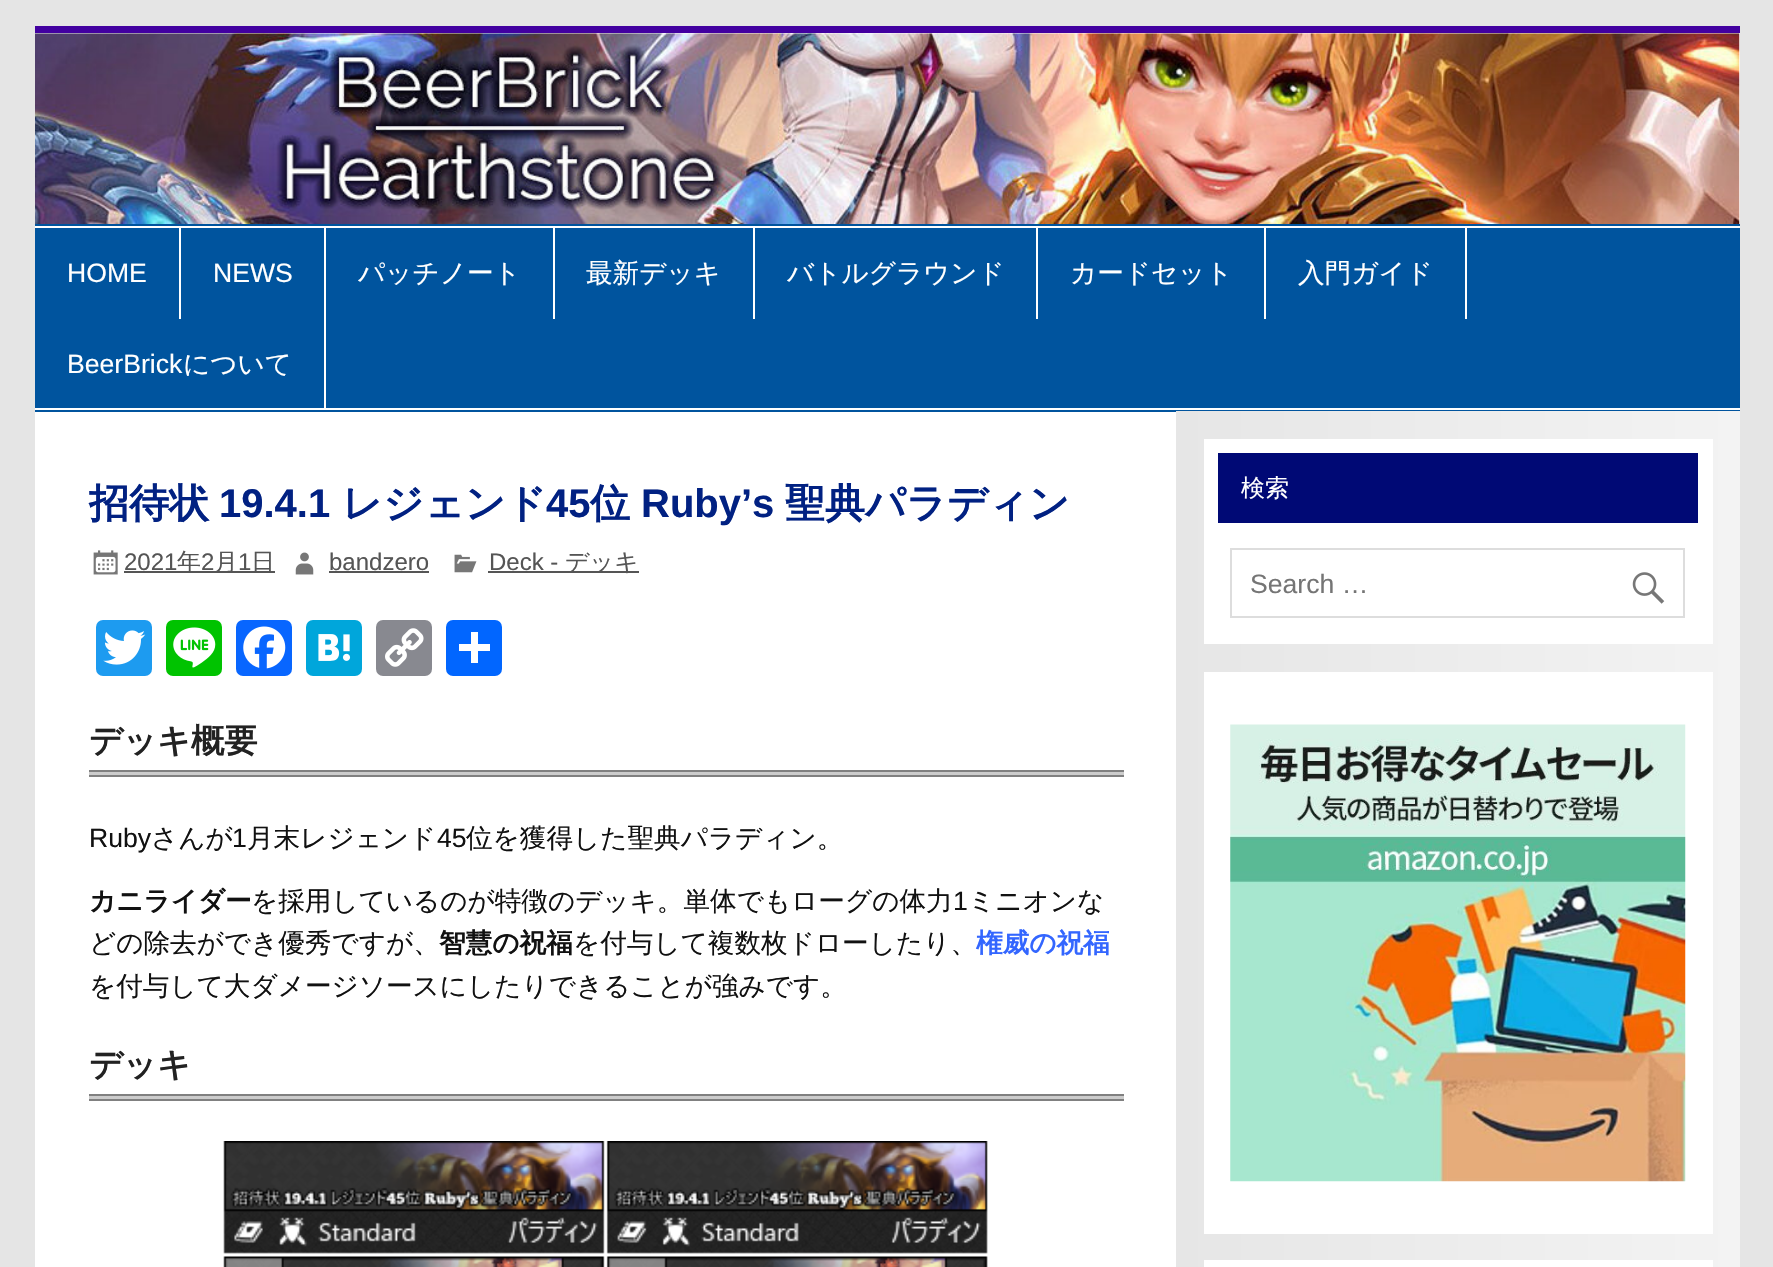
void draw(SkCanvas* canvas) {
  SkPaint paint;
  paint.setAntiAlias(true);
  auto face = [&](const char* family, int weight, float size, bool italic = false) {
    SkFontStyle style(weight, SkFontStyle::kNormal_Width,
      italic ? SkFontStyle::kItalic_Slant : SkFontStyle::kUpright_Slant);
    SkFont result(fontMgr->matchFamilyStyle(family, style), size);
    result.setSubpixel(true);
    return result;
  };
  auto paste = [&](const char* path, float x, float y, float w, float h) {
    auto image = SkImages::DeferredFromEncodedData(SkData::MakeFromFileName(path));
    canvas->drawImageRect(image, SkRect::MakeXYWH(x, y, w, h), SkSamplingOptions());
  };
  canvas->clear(0xffe5e5e5);
  paint.setColor(0xffffffff);
  canvas->drawRect(SkRect::MakeXYWH(35, 33, 1705, 1234), paint);
  paint.setColor(0xff4200a0);
  canvas->drawRect(SkRect::MakeXYWH(35, 26, 1705, 7), paint);
  paste("img/1.png", 35, 33, 1705, 191);
  {
    const struct { float x, y, w, h; SkColor color; } items[] = {
      {35, 224, 1705, 2, 0xff00549e},
      {35, 410, 1705, 2, 0xff00549e},
      {35, 228, 1705, 180, 0xff00549e},
      {179, 228, 2, 91, 0xffffffff},
      {324, 228, 2, 180, 0xffffffff},
      {553, 228, 2, 91, 0xffffffff},
      {753, 228, 2, 91, 0xffffffff},
      {1036, 228, 2, 91, 0xffffffff},
      {1264, 228, 2, 91, 0xffffffff},
      {1465, 228, 2, 91, 0xffffffff},
    };
    for (auto [x, y, w, h, color] : items) {
      paint.setColor(color);
      canvas->drawRect(SkRect::MakeXYWH(x, y, w, h), paint);
    }
  }
  paste("img/2.png", 93, 550, 25, 25);
  paint.setColor(0xff555555);
  canvas->drawRect(SkRect::MakeXYWH(124, 571, 151, 2), paint);
  paste("img/3.png", 295, 552, 19, 23);
  canvas->drawRect(SkRect::MakeXYWH(329, 571, 100, 2), paint);
  paste("img/4.png", 454, 554, 23, 19);
  canvas->drawRect(SkRect::MakeXYWH(488, 571, 151, 2), paint);
  paint.setColor(0xff1d9bf0);
  canvas->drawRoundRect(SkRect::MakeXYWH(96, 620, 56, 56), 7, 7, paint);
  paste("img/5.png", 103, 630, 43, 35);
  paint.setColor(0xff00c300);
  canvas->drawRoundRect(SkRect::MakeXYWH(166, 620, 56, 56), 7, 7, paint);
  paste("img/6.png", 173, 627, 43, 41);
  paint.setColor(0xff0866ff);
  canvas->drawRoundRect(SkRect::MakeXYWH(236, 620, 56, 56), 7, 7, paint);
  paste("img/7.png", 243, 626, 43, 43);
  paint.setColor(0xff00a6db);
  canvas->drawRoundRect(SkRect::MakeXYWH(306, 620, 56, 56), 7, 7, paint);
  paste("img/8.png", 318, 634, 33, 27);
  paint.setColor(0xff888990);
  canvas->drawRoundRect(SkRect::MakeXYWH(376, 620, 56, 56), 7, 7, paint);
  paste("img/9.png", 385, 628, 39, 39);
  paint.setColor(0xff0166ff);
  canvas->drawRoundRect(SkRect::MakeXYWH(446, 620, 56, 56), 7, 7, paint);
  {
    const struct { float x, y, w, h; SkColor color; } items[] = {
      {471, 632, 7, 31, 0xffffffff},
      {459, 644, 31, 7, 0xffffffff},
      {89, 772, 1035, 3, 0xffcccccc},
      {89, 770, 1035, 2, 0xff808080},
      {89, 775, 1035, 2, 0xff808080},
      {89, 1096, 1035, 3, 0xffcccccc},
      {89, 1094, 1035, 2, 0xff808080},
      {89, 1099, 1035, 2, 0xff808080},
    };
    for (auto [x, y, w, h, color] : items) {
      paint.setColor(color);
      canvas->drawRect(SkRect::MakeXYWH(x, y, w, h), paint);
    }
  }
  paste("img/10.png", 223, 1141, 765, 126);
  {
    const SkColor colors[] = {0xffe6e6e6, 0xfff3f3f3};
    const float stops[] = {0, 1};
    const SkPoint ends[] = {{1176, 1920}, {1740, 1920}};
    paint.setShader(SkGradientShader::MakeLinear(ends, colors, stops, 2, SkTileMode::kClamp));
    paint.setAlpha(255);
  }
  canvas->drawRect(SkRect::MakeXYWH(1176, 411, 564, 856), paint);
  paint.setShader(nullptr);
  paint.setColor(0xffffffff);
  canvas->drawRect(SkRect::MakeXYWH(1204, 439, 509, 205), paint);
  paint.setColor(0xff000975);
  canvas->drawRect(SkRect::MakeXYWH(1218, 453, 480, 70), paint);
  paint.setStroke(true);
  paint.setStrokeWidth(2);
  paint.setColor(0xffdddddd);
  canvas->drawRect(SkRect::MakeXYWH(1231, 549, 453, 68), paint);
  paste("img/11.png", 1632, 572, 33, 32);
  paint.setStroke(false);
  paint.setColor(0xffffffff);
  canvas->drawRect(SkRect::MakeXYWH(1204, 672, 509, 562), paint);
  paste("img/12.png", 1230, 724, 456, 458);
  canvas->drawRect(SkRect::MakeXYWH(1204, 1260, 509, 7), paint);
  auto f0 = face("Liberation Sans", 400, 26.6f);
  canvas->drawString("HOME", 67, 282, f0, paint);
  canvas->drawString("NEWS", 213, 282, f0, paint);
  auto f1 = face("WenQuanYi Zen Hei", 500, 26.6f);
  {
    const struct { const char* s; float x, y; } items[] = {
      {"パッチノート", 358, 282},
      {"最新デッキ", 586, 282},
      {"バトルグラウンド", 787, 282},
      {"カードセット", 1070, 282},
      {"入門ガイド", 1298, 282},
    };
    for (auto [s, x, y] : items) {
      canvas->drawString(s, x, y, f1, paint);
    }
  }
  canvas->drawString("BeerBrick", 67, 373, f0, paint);
  canvas->drawString("について", 183, 373, f1, paint);
  auto f2 = face("WenQuanYi Zen Hei", 700, 40);
  paint.setColor(0xff012182);
  canvas->drawString("招待状", 89, 517, f2, paint);
  auto f3 = face("Liberation Sans", 700, 40);
  canvas->drawString("19.4.1", 219, 517, f3, paint);
  canvas->drawString("レジェンド", 342, 517, f2, paint);
  canvas->drawString("45", 546, 517, f3, paint);
  canvas->drawString("位", 590, 517, f2, paint);
  canvas->drawString("Ruby’s", 641, 517, f3, paint);
  canvas->drawString("聖典パラディン", 785, 517, f2, paint);
  auto f4 = face("Liberation Sans", 400, 24);
  paint.setColor(0xff555555);
  canvas->drawString("2021", 124, 570, f4, paint);
  auto f5 = face("WenQuanYi Zen Hei", 500, 24);
  canvas->drawString("年", 177, 570, f5, paint);
  canvas->drawString("2", 201, 570, f4, paint);
  canvas->drawString("月", 214, 570, f5, paint);
  canvas->drawString("1", 238, 570, f4, paint);
  canvas->drawString("日", 251, 570, f5, paint);
  canvas->drawString("bandzero", 329, 570, f4, paint);
  canvas->drawString("Deck -", 489, 570, f4, paint);
  canvas->drawString("デッキ", 565, 570, f5, paint);
  auto f6 = face("WenQuanYi Zen Hei", 700, 33.25f);
  paint.setColor(0xff222222);
  canvas->drawString("デッキ概要", 89, 752, f6, paint);
  paint.setColor(0xff111111);
  canvas->drawString("Ruby", 89, 847, f0, paint);
  canvas->drawString("さんが", 151, 847, f1, paint);
  canvas->drawString("1", 232, 847, f0, paint);
  canvas->drawString("月末レジェンド", 247, 847, f1, paint);
  canvas->drawString("45", 437, 847, f0, paint);
  canvas->drawString("位を獲得した聖典パラディン。", 466, 847, f1, paint);
  auto f7 = face("WenQuanYi Zen Hei", 700, 26.6f);
  canvas->drawString("カニライダー", 89, 910, f7, paint);
  canvas->drawString("を採用しているのが特徴のデッキ。単体でもローグの体力", 251, 910, f1, paint);
  canvas->drawString("1", 953, 910, f0, paint);
  canvas->drawString("ミニオンな", 968, 910, f1, paint);
  canvas->drawString("どの除去ができ優秀ですが、", 89, 952, f1, paint);
  canvas->drawString("智慧の祝福", 439, 952, f7, paint);
  canvas->drawString("を付与して複数枚ドローしたり、", 573, 952, f1, paint);
  paint.setColor(0xff3366ff);
  canvas->drawString("権威の祝福", 976, 952, f7, paint);
  paint.setColor(0xff111111);
  canvas->drawString("を付与して大ダメージソースにしたりできることが強みです。", 89, 995, f1, paint);
  paint.setColor(0xff222222);
  canvas->drawString("デッキ", 89, 1076, f6, paint);
  paint.setColor(0xffffffff);
  canvas->drawString("検索", 1241, 496, f5, paint);
  paint.setColor(0xff757575);
  canvas->drawString("Search …", 1250, 593, f0, paint);
}
